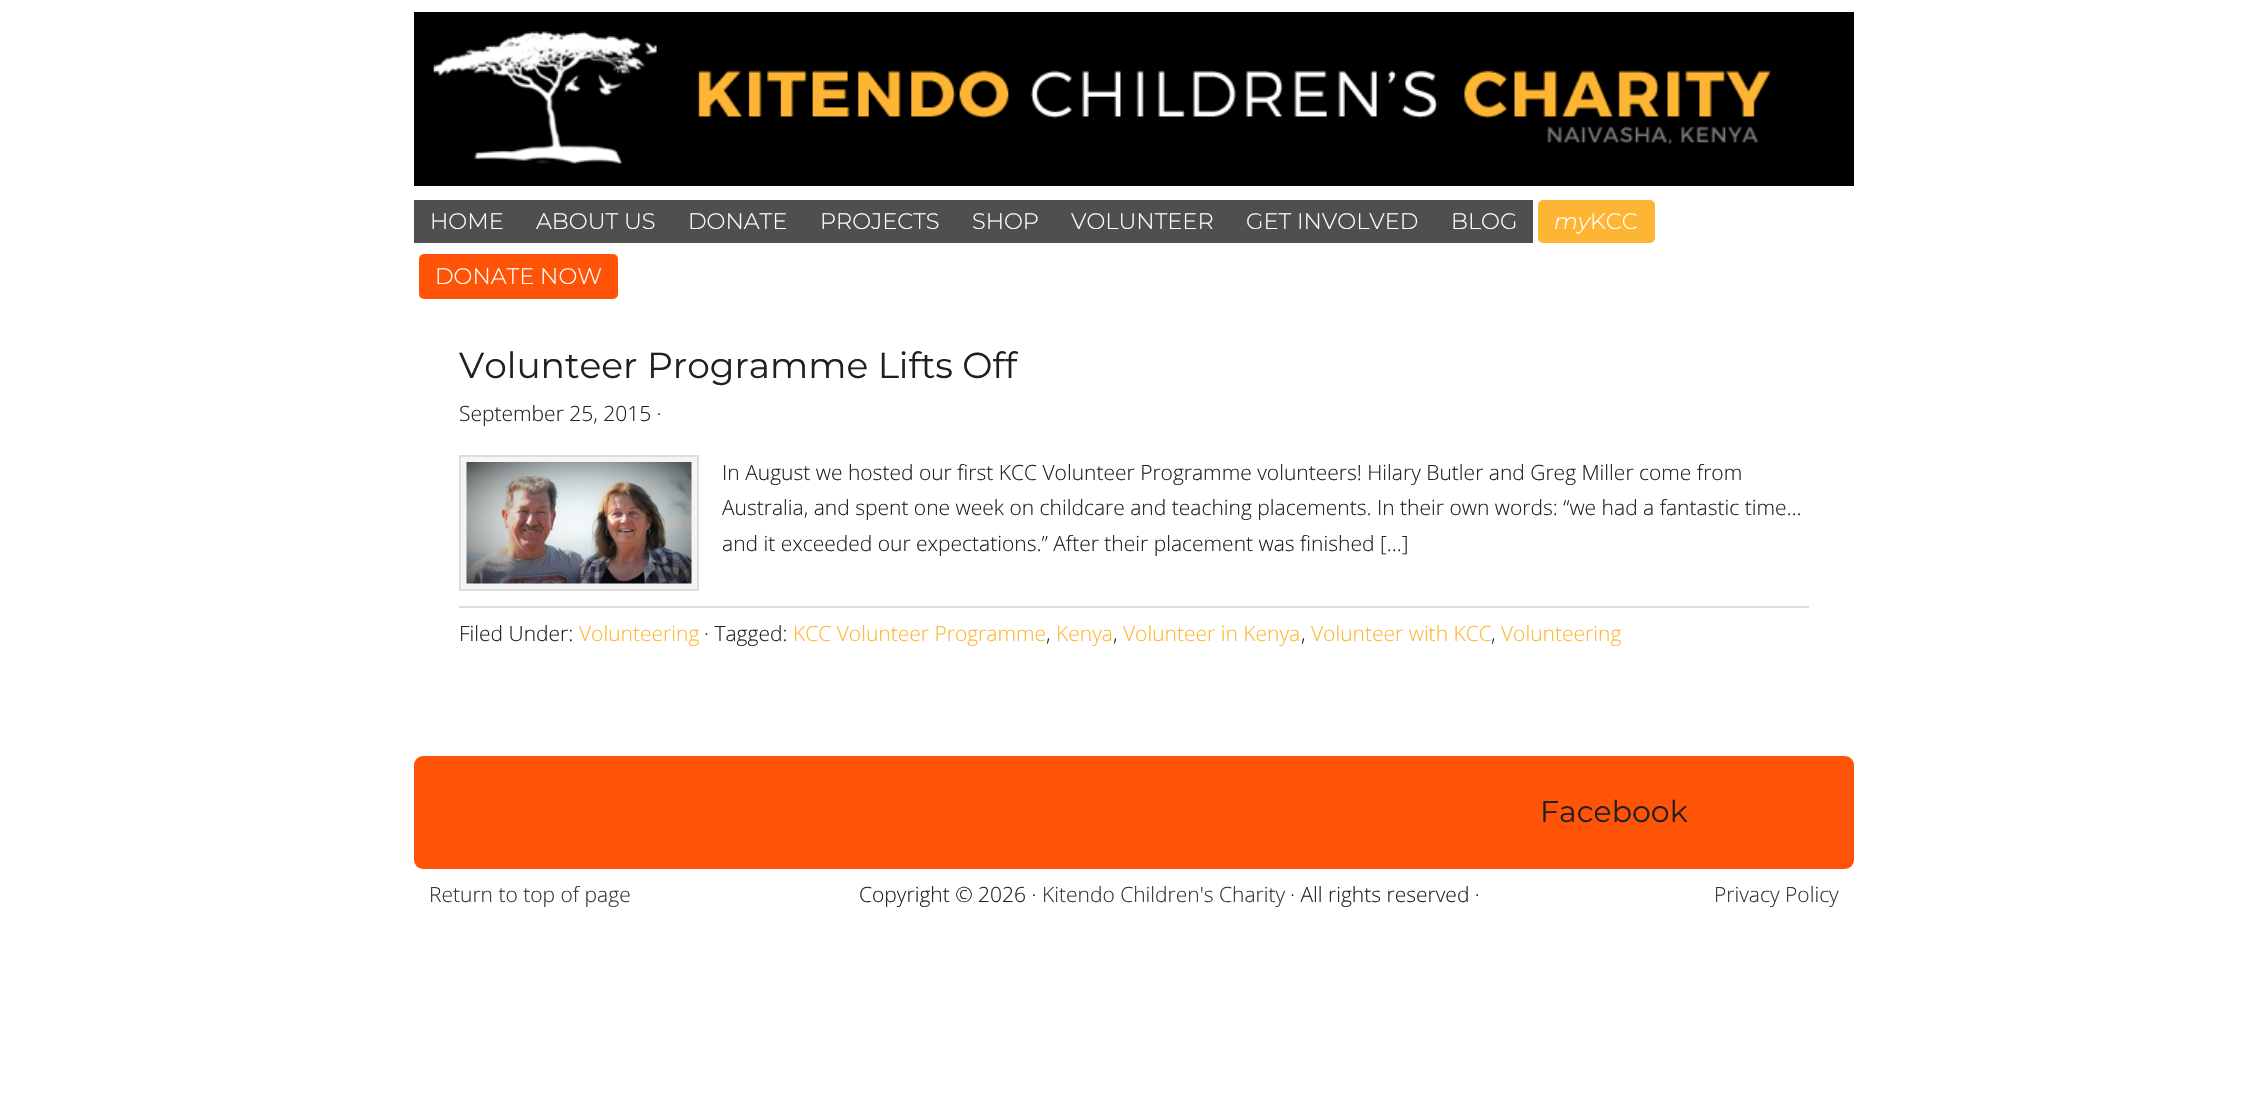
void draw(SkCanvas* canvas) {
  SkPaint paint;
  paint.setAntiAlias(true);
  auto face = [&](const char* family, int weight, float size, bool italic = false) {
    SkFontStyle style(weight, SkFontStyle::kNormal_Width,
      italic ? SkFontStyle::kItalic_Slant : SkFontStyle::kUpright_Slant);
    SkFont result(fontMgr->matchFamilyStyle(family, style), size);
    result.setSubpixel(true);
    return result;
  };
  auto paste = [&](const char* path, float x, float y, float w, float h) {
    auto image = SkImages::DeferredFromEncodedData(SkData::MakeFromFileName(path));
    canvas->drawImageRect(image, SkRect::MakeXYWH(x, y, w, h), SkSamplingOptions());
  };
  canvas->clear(0xffffffff);
  paste("img/1.png", 414, 12, 1440, 174);
  paint.setColor(0xff4f4f4e);
  canvas->drawRect(SkRect::MakeXYWH(414, 200, 1119, 43), paint);
  paint.setColor(0xffffb534);
  canvas->drawRoundRect(SkRect::MakeXYWH(1538, 200, 117, 43), 5, 5, paint);
  paint.setColor(0xffff5307);
  canvas->drawRoundRect(SkRect::MakeXYWH(419, 254, 199, 45), 5, 5, paint);
  paint.setColor(0xfff5f5f5);
  canvas->drawRect(SkRect::MakeXYWH(460, 456, 238, 134), paint);
  paint.setStroke(true);
  paint.setStrokeWidth(2);
  paint.setColor(0xffdddddd);
  canvas->drawRect(SkRect::MakeXYWH(460, 456, 238, 134), paint);
  paste("img/2.png", 466, 462, 226, 122);
  paint.setStroke(false);
  canvas->drawRect(SkRect::MakeXYWH(459, 606, 1350, 2), paint);
  paint.setColor(0xffff5307);
  canvas->drawRoundRect(SkRect::MakeXYWH(414, 756, 1440, 113), 9, 9, paint);
  auto f0 = face("Montserrat", 300, 22.5f);
  paint.setColor(0xffffffff);
  {
    const struct { const char* s; float x, y; } items[] = {
      {"HOME", 430, 229},
      {"ABOUT US", 536, 229},
      {"DONATE", 688, 229},
      {"PROJECTS", 820, 229},
      {"SHOP", 972, 229},
      {"VOLUNTEER", 1071, 229},
      {"GET INVOLVED", 1246, 229},
      {"BLOG", 1451, 229},
    };
    for (auto [s, x, y] : items) {
      canvas->drawString(s, x, y, f0, paint);
    }
  }
  auto f1 = face("Montserrat", 300, 22.5f, true);
  canvas->drawString("my", 1554, 229, f1, paint);
  canvas->drawString("KCC", 1590, 229, f0, paint);
  canvas->drawString("DONATE NOW", 435, 284, f0, paint);
  auto f2 = face("Montserrat", 400, 36);
  paint.setColor(0xff202020);
  canvas->drawString("Volunteer Programme Lifts Off", 459, 378, f2, paint);
  auto f3 = face("Open Sans", 300, 21);
  {
    const struct { const char* s; float x, y; } items[] = {
      {"September 25, 2015 ·", 459, 421},
      {"In August we hosted our first KCC Volunteer Programme volunteers! Hilary Butler and Greg Miller come from", 722, 480},
      {"Australia, and spent one week on childcare and teaching placements. In their own words: “we had a fantastic time…", 722, 515},
      {"and it exceeded our expectations.” After their placement was finished […]", 722, 551},
      {"Filed Under:", 459, 641},
    };
    for (auto [s, x, y] : items) {
      canvas->drawString(s, x, y, f3, paint);
    }
  }
  paint.setColor(0xffffb534);
  canvas->drawString("Volunteering", 579, 641, f3, paint);
  paint.setColor(0xff202020);
  canvas->drawString("· Tagged:", 704, 641, f3, paint);
  paint.setColor(0xffffb534);
  canvas->drawString("KCC Volunteer Programme", 793, 641, f3, paint);
  paint.setColor(0xff202020);
  canvas->drawString(",", 1046, 641, f3, paint);
  paint.setColor(0xffffb534);
  canvas->drawString("Kenya", 1056, 641, f3, paint);
  paint.setColor(0xff202020);
  canvas->drawString(",", 1113, 641, f3, paint);
  paint.setColor(0xffffb534);
  canvas->drawString("Volunteer in Kenya", 1123, 641, f3, paint);
  paint.setColor(0xff202020);
  canvas->drawString(",", 1301, 641, f3, paint);
  paint.setColor(0xffffb534);
  canvas->drawString("Volunteer with KCC", 1311, 641, f3, paint);
  paint.setColor(0xff202020);
  canvas->drawString(",", 1491, 641, f3, paint);
  paint.setColor(0xffffb534);
  canvas->drawString("Volunteering", 1501, 641, f3, paint);
  auto f4 = face("Montserrat", 400, 30);
  paint.setColor(0xff202020);
  canvas->drawString("Facebook", 1540, 822, f4, paint);
  paint.setColor(0xff333333);
  canvas->drawString("Return to top of page", 429, 902, f3, paint);
  paint.setColor(0xff202020);
  canvas->drawString("Copyright © 2026 ·", 859, 902, f3, paint);
  paint.setColor(0xff333333);
  canvas->drawString("Kitendo Children's Charity", 1042, 902, f3, paint);
  paint.setColor(0xff202020);
  canvas->drawString("· All rights reserved ·", 1290, 902, f3, paint);
  paint.setColor(0xff333333);
  canvas->drawString("Privacy Policy", 1714, 902, f3, paint);
}
